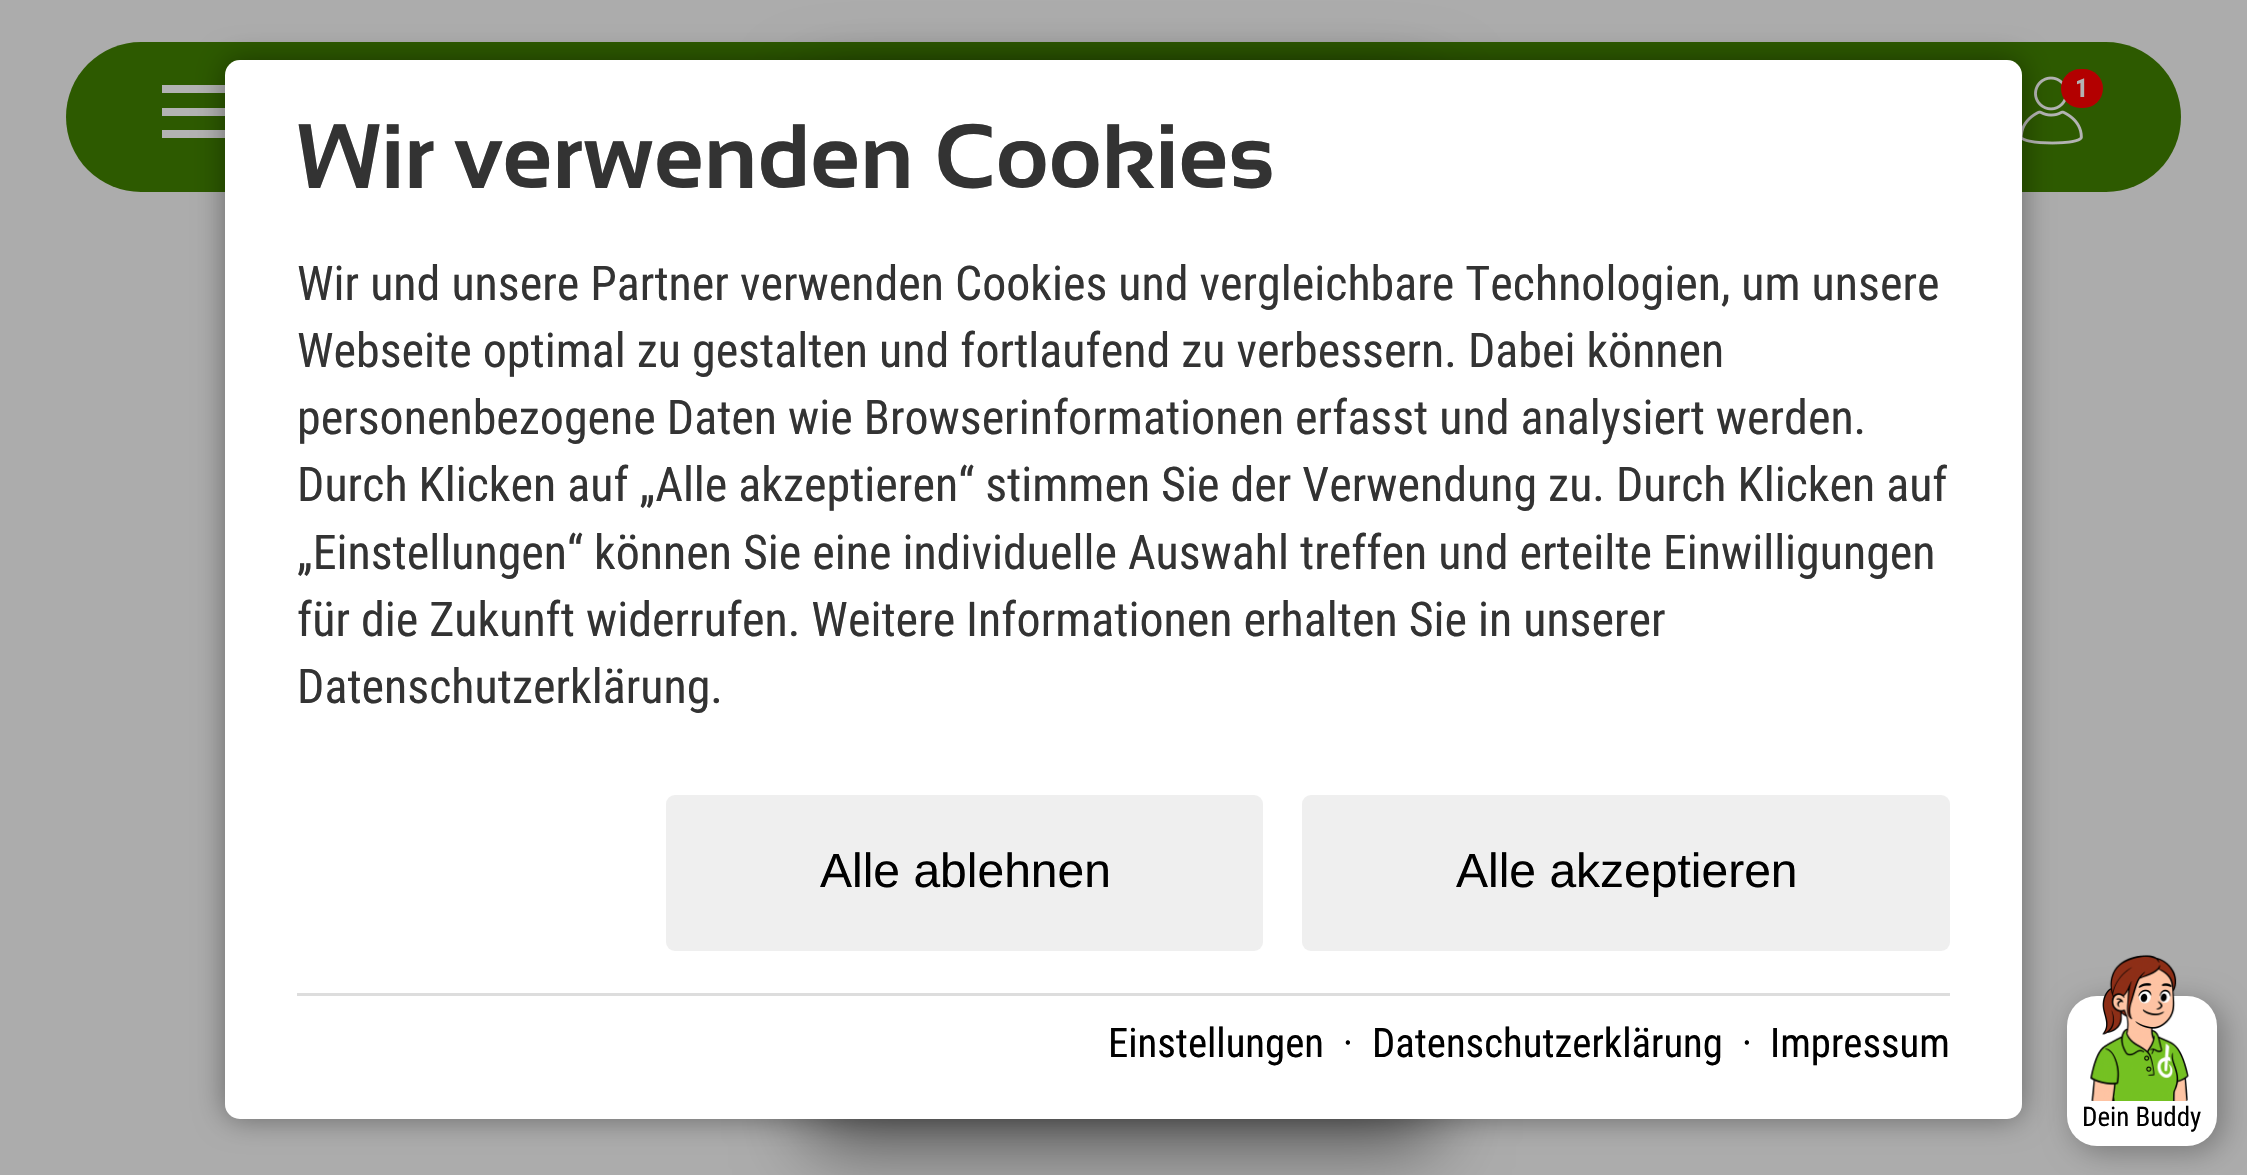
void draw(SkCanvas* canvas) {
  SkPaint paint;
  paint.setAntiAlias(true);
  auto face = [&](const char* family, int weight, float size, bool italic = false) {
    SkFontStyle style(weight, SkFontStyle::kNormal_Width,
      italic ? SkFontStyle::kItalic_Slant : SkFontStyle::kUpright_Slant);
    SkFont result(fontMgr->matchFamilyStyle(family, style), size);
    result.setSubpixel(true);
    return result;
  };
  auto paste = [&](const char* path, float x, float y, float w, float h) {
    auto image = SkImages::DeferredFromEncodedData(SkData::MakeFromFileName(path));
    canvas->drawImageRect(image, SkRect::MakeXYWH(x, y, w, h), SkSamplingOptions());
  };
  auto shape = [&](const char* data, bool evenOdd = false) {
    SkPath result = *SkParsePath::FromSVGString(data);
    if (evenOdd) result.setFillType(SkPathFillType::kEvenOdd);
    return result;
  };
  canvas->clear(0xffacacac);
  paint.setColor(0xff2d5a00);
  canvas->drawRoundRect(SkRect::MakeXYWH(66, 42, 2115, 150), 75, 75, paint);
  paint.setColor(0x80000000);
  paint.setMaskFilter(SkMaskFilter::MakeBlur(kNormal_SkBlurStyle, 37.5f));
  canvas->drawRoundRect(SkRect::MakeXYWH(810, 90, 624, 1056), 12, 12, paint);
  paint.setMaskFilter(nullptr);
  paint.setColor(0xffb3b3b3);
  canvas->drawPath(shape("M162 85H232V93H162ZM162 108H232V116H162ZM162 130H232V138H162Z"), paint);
  paste("img/1.png", 2022, 76, 61, 69);
  paint.setColor(0xffb30000);
  canvas->drawRoundRect(SkRect::MakeXYWH(2061, 69, 42, 39), 19.5f, 19.5f, paint);
  canvas->save();
  canvas->clipPath(shape("M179 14H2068V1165H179ZM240 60H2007C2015.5 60 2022 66.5 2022 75V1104C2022 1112.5 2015.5 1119 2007 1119H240C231.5 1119 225 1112.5 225 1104V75C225 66.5 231.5 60 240 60Z", true), true);
  paint.setColor(0x66000000);
  paint.setMaskFilter(SkMaskFilter::MakeBlur(kNormal_SkBlurStyle, 15));
  canvas->drawRoundRect(SkRect::MakeXYWH(225, 60, 1797, 1059), 15, 15, paint);
  paint.setMaskFilter(nullptr);
  canvas->restore();
  paint.setColor(0xffffffff);
  canvas->drawRoundRect(SkRect::MakeXYWH(225, 60, 1797, 1059), 15, 15, paint);
  paint.setColor(0xffefefef);
  canvas->drawRoundRect(SkRect::MakeXYWH(666, 795, 597, 156), 9, 9, paint);
  canvas->drawRoundRect(SkRect::MakeXYWH(1302, 795, 648, 156), 9, 9, paint);
  paint.setColor(0xffdddddd);
  canvas->drawRect(SkRect::MakeXYWH(297, 993, 1653, 3), paint);
  paint.setColor(0x4d000000);
  paint.setMaskFilter(SkMaskFilter::MakeBlur(kNormal_SkBlurStyle, 15));
  canvas->drawRoundRect(SkRect::MakeXYWH(2073, 1002, 150, 150), 30, 30, paint);
  paint.setMaskFilter(nullptr);
  paint.setColor(0xffffffff);
  canvas->drawRoundRect(SkRect::MakeXYWH(2067, 996, 150, 150), 30, 30, paint);
  paste("img/2.png", 2090, 954, 99, 147);
  auto f0 = face("Roboto Condensed", 700, 26);
  paint.setColor(0xffb3b3b3);
  canvas->drawString("1", 2075, 97, f0, paint);
  auto f1 = face("Sansation", 700, 91.25f);
  paint.setColor(0xff333333);
  canvas->drawString("Wir verwenden Cookies", 297, 188, f1, paint);
  auto f2 = face("Roboto Condensed", 400, 48);
  {
    const struct { const char* s; float x, y; } items[] = {
      {"Wir und unsere Partner verwenden Cookies und vergleichbare Technologien, um unsere", 297, 300},
      {"Webseite optimal zu gestalten und fortlaufend zu verbessern. Dabei können", 297, 367},
      {"personenbezogene Daten wie Browserinformationen erfasst und analysiert werden.", 297, 434},
      {"Durch Klicken auf „Alle akzeptieren“ stimmen Sie der Verwendung zu. Durch Klicken auf", 297, 501},
      {"„Einstellungen“ können Sie eine individuelle Auswahl treffen und erteilte Einwilligungen", 297, 569},
      {"für die Zukunft widerrufen. Weitere Informationen erhalten Sie in unserer", 297, 636},
      {"Datenschutzerklärung.", 297, 703},
    };
    for (auto [s, x, y] : items) {
      canvas->drawString(s, x, y, f2, paint);
    }
  }
  auto f3 = face("Liberation Sans", 400, 48);
  paint.setColor(0xff000000);
  canvas->drawString("Alle ablehnen", 820, 887, f3, paint);
  canvas->drawString("Alle akzeptieren", 1456, 887, f3, paint);
  auto f4 = face("Roboto Condensed", 400, 40.75f);
  {
    const struct { const char* s; float x, y; } items[] = {
      {"Einstellungen", 1108, 1057},
      {"·", 1343, 1057},
      {"Datenschutzerklärung", 1372, 1057},
      {"·", 1742, 1057},
      {"Impressum", 1770, 1057},
    };
    for (auto [s, x, y] : items) {
      canvas->drawString(s, x, y, f4, paint);
    }
  }
  auto f5 = face("Roboto Condensed", 400, 27);
  canvas->drawString("Dein Buddy", 2082, 1126, f5, paint);
}
